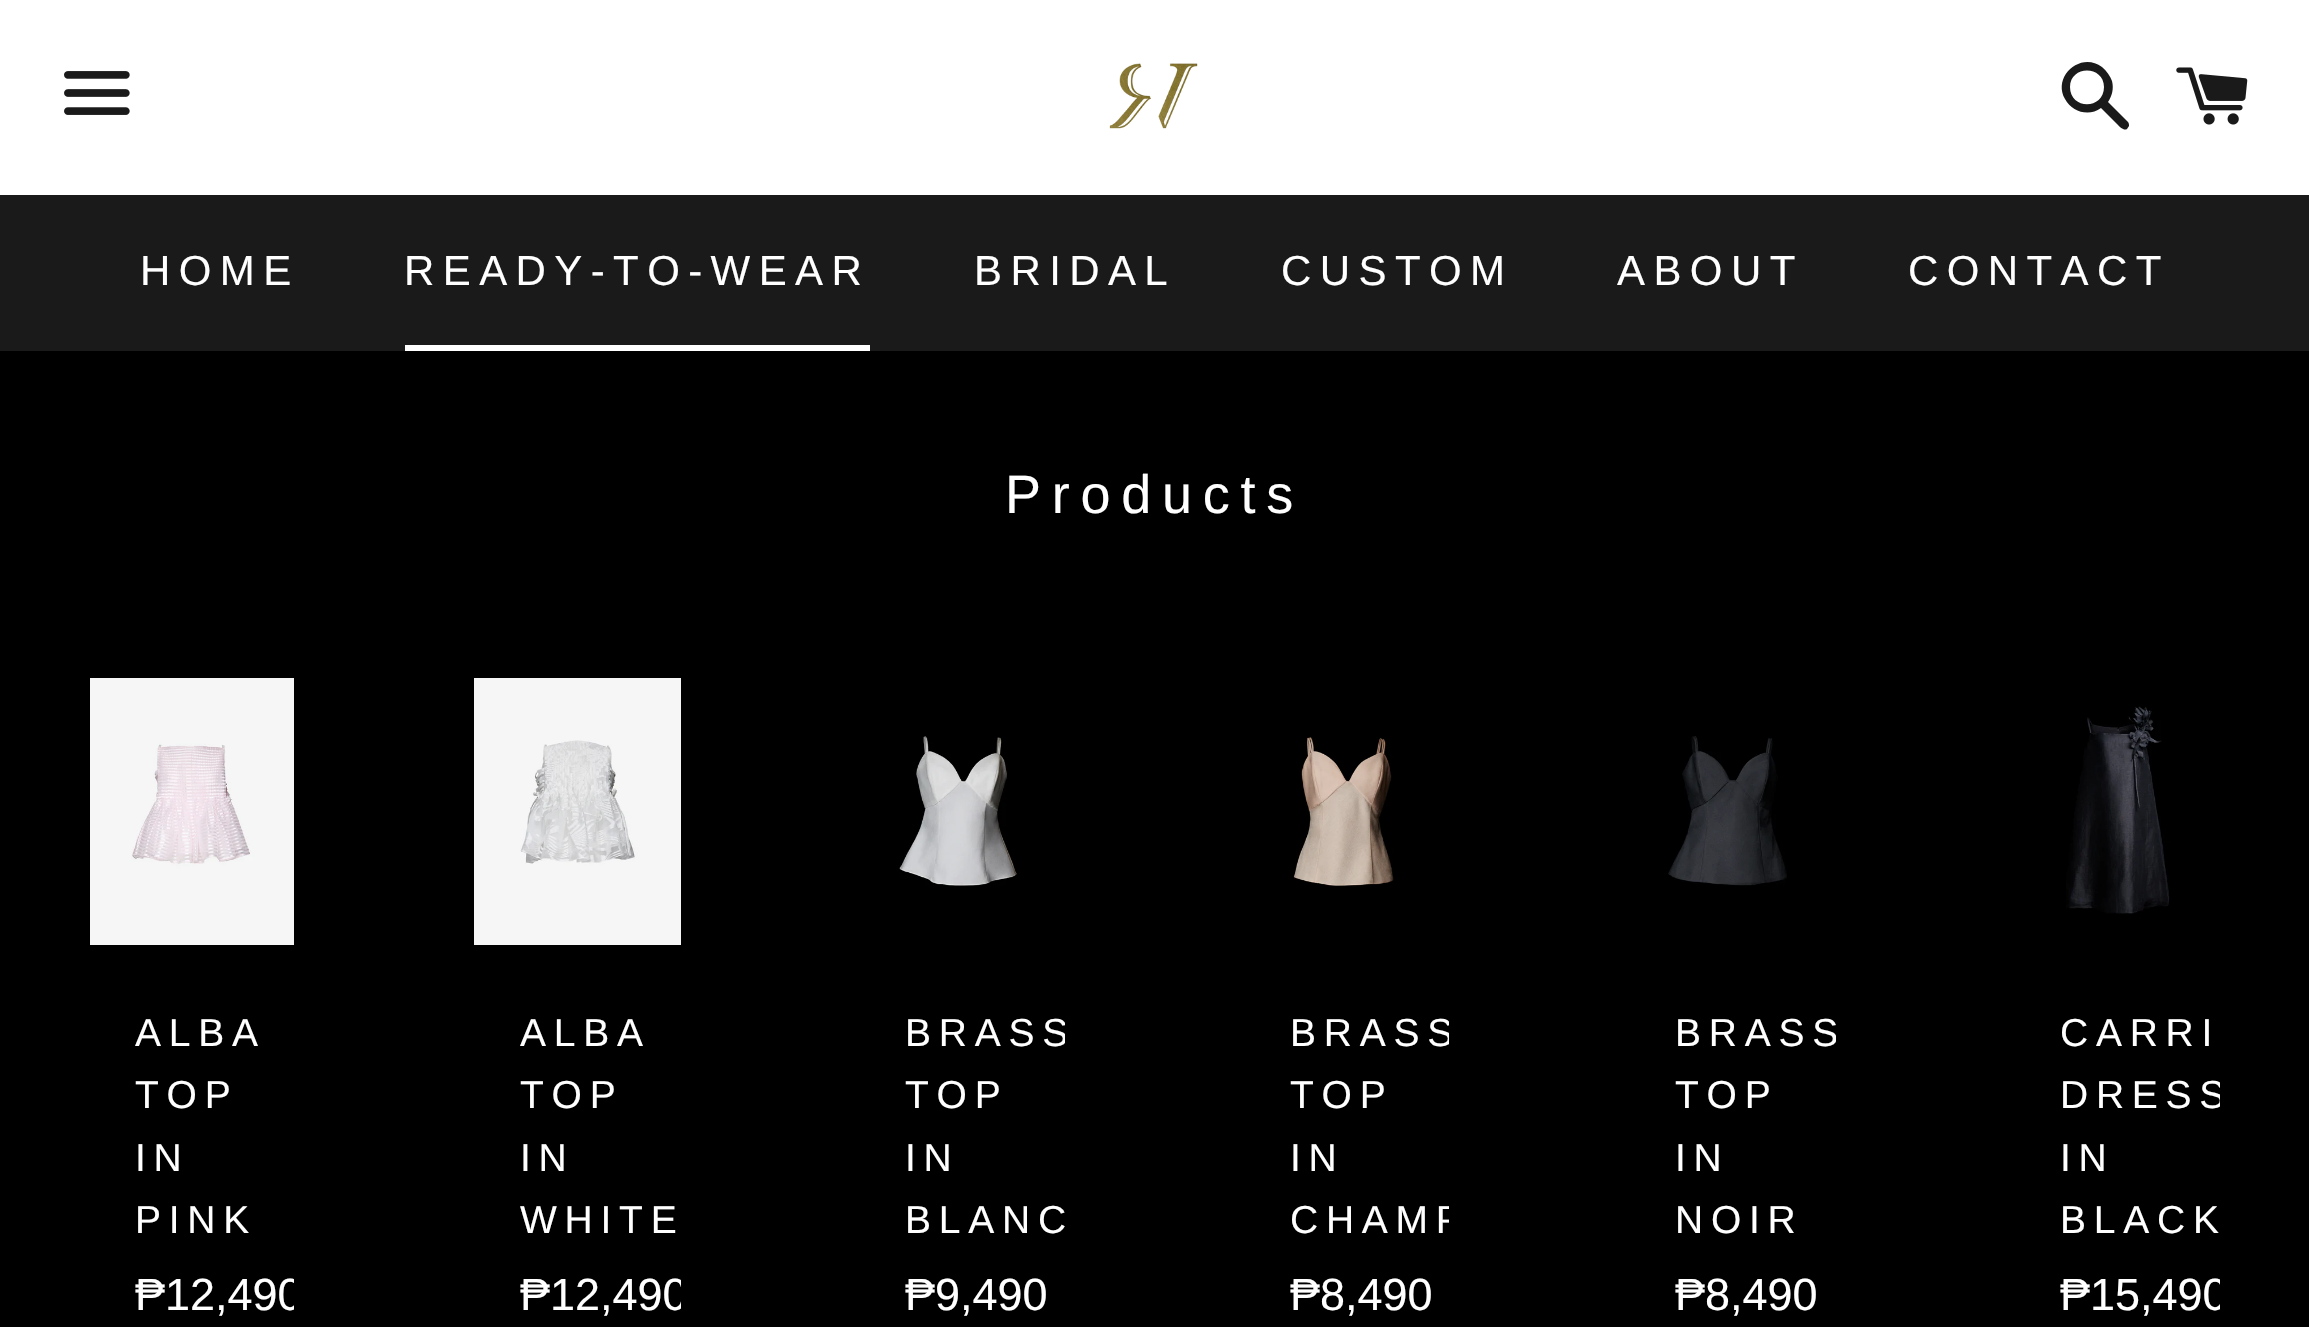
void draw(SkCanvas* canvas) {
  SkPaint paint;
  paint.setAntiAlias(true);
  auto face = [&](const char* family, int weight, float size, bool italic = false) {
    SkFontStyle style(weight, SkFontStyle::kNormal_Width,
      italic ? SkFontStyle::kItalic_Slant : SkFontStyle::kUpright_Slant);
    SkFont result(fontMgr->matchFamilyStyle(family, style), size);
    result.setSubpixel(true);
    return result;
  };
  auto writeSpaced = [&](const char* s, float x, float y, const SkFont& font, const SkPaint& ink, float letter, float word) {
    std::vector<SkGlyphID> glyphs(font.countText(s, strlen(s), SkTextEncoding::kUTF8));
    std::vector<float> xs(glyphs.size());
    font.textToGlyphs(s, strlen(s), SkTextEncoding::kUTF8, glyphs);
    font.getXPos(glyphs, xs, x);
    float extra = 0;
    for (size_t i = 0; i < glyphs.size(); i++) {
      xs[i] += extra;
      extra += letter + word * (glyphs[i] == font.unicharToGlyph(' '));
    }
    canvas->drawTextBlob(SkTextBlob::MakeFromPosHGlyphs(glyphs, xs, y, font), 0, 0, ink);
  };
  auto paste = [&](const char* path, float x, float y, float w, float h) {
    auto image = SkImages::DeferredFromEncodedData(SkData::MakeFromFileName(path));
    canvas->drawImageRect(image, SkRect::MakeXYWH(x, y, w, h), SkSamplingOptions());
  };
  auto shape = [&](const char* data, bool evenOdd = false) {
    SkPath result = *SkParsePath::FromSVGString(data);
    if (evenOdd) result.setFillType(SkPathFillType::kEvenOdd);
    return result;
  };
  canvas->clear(0xff000000);
  paint.setColor(0xffffffff);
  canvas->drawRect(SkRect::MakeXYWH(0, 0, 2309, 195), paint);
  paste("img/1.png", 64, 71, 66, 44);
  paste("img/2.png", 1109, 63, 89, 66);
  paint.setColor(0xff1a1a1a);
  canvas->drawPath(shape("M2128 122L2108 102C2112 96 2114 89 2112 81C2110 76 2107 71 2102 67C2081 51 2052 76 2065 99C2072 112 2089 117 2101 108L2118 125C2120 127 2124 131 2127 129L2129 126C2129 125 2129 123 2128 122ZM2070 87C2070 65 2104 65 2104 87C2104 110 2070 110 2070 87Z"), paint);
  paste("img/3.png", 2176, 67, 72, 58);
  canvas->drawRect(SkRect::MakeXYWH(0, 195, 2309, 156), paint);
  paint.setColor(0xffffffff);
  canvas->drawRect(SkRect::MakeXYWH(405, 345, 465, 6), paint);
  paste("img/4.png", 90, 678, 204, 267);
  paste("img/5.png", 474, 678, 207, 267);
  paste("img/6.png", 899, 736, 118, 150);
  paste("img/7.png", 1293, 737, 101, 150);
  paste("img/8.png", 1668, 736, 119, 150);
  paste("img/9.png", 2066, 706, 104, 208);
  auto f0 = face("Arimo", 400, 42);
  {
    const struct { const char* s; float x, y; } items[] = {
      {"HOME", 140, 285},
      {"READY-TO-WEAR", 404, 285},
      {"BRIDAL", 974, 285},
      {"CUSTOM", 1281, 285},
      {"ABOUT", 1617, 285},
      {"CONTACT", 1908, 285},
    };
    for (auto [s, x, y] : items) {
      writeSpaced(s, x, y, f0, paint, 8.4f, 0);
    }
  }
  auto f1 = face("Arimo", 400, 54);
  writeSpaced("Products", 1005, 513, f1, paint, 10.75f, 0);
  auto f2 = face("Arimo", 400, 39);
  {
    const struct { const char* s; float x, y; } items[] = {
      {"ALBA", 135, 1046},
      {"TOP", 135, 1108},
      {"IN", 135, 1171},
      {"PINK", 135, 1233},
    };
    for (auto [s, x, y] : items) {
      writeSpaced(s, x, y, f2, paint, 7.75f, 0);
    }
  }
  canvas->save();
  canvas->clipRect(SkRect::MakeXYWH(90, 678, 204, 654));
  auto f3 = face("Arimo", 400, 45);
  canvas->drawString("₱12,490", 135, 1310, f3, paint);
  canvas->restore();
  {
    const struct { const char* s; float x, y; } items[] = {
      {"ALBA", 520, 1046},
      {"TOP", 520, 1108},
      {"IN", 520, 1171},
      {"WHITE", 520, 1233},
    };
    for (auto [s, x, y] : items) {
      writeSpaced(s, x, y, f2, paint, 7.75f, 0);
    }
  }
  canvas->save();
  canvas->clipRect(SkRect::MakeXYWH(474, 678, 207, 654));
  canvas->drawString("₱12,490", 520, 1310, f3, paint);
  canvas->restore();
  canvas->save();
  canvas->clipRect(SkRect::MakeXYWH(861, 678, 204, 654));
  writeSpaced("BRASS", 905, 1046, f2, paint, 7.75f, 0);
  canvas->restore();
  {
    const struct { const char* s; float x, y; } items[] = {
      {"TOP", 905, 1108},
      {"IN", 905, 1171},
      {"BLANC", 905, 1233},
    };
    for (auto [s, x, y] : items) {
      writeSpaced(s, x, y, f2, paint, 7.75f, 0);
    }
  }
  canvas->drawString("₱9,490", 905, 1310, f3, paint);
  canvas->save();
  canvas->clipRect(SkRect::MakeXYWH(1245, 678, 204, 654));
  writeSpaced("BRASS", 1290, 1046, f2, paint, 7.75f, 0);
  canvas->restore();
  writeSpaced("TOP", 1290, 1108, f2, paint, 7.75f, 0);
  writeSpaced("IN", 1290, 1171, f2, paint, 7.75f, 0);
  canvas->save();
  canvas->clipRect(SkRect::MakeXYWH(1245, 678, 204, 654));
  writeSpaced("CHAMP", 1290, 1233, f2, paint, 7.75f, 0);
  canvas->restore();
  canvas->drawString("₱8,490", 1290, 1310, f3, paint);
  canvas->save();
  canvas->clipRect(SkRect::MakeXYWH(1629, 678, 207, 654));
  writeSpaced("BRASS", 1675, 1046, f2, paint, 7.75f, 0);
  canvas->restore();
  {
    const struct { const char* s; float x, y; } items[] = {
      {"TOP", 1675, 1108},
      {"IN", 1675, 1171},
      {"NOIR", 1675, 1233},
    };
    for (auto [s, x, y] : items) {
      writeSpaced(s, x, y, f2, paint, 7.75f, 0);
    }
  }
  canvas->drawString("₱8,490", 1675, 1310, f3, paint);
  writeSpaced("CARRI", 2060, 1046, f2, paint, 7.75f, 0);
  canvas->save();
  canvas->clipRect(SkRect::MakeXYWH(2016, 678, 204, 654));
  writeSpaced("DRESS", 2060, 1108, f2, paint, 7.75f, 0);
  canvas->restore();
  writeSpaced("IN", 2060, 1171, f2, paint, 7.75f, 0);
  writeSpaced("BLACK", 2060, 1233, f2, paint, 7.75f, 0);
  canvas->save();
  canvas->clipRect(SkRect::MakeXYWH(2016, 678, 204, 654));
  canvas->drawString("₱15,490", 2060, 1310, f3, paint);
  canvas->restore();
}
